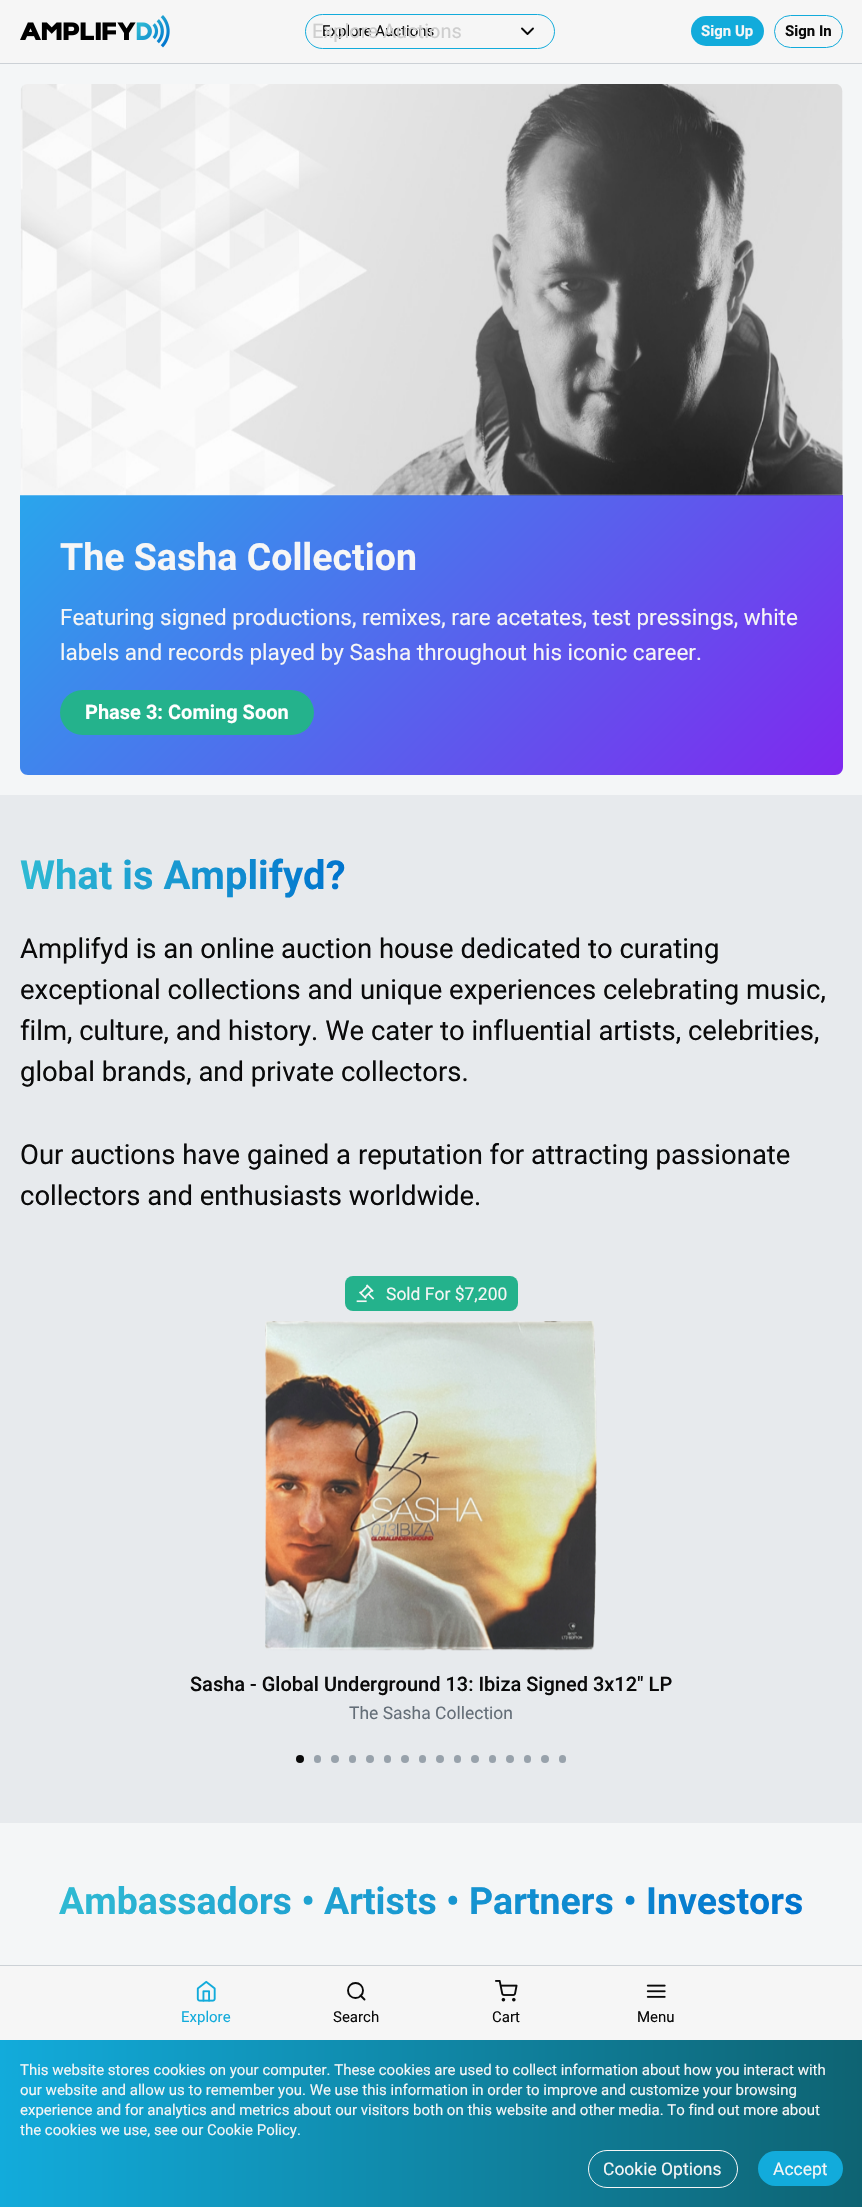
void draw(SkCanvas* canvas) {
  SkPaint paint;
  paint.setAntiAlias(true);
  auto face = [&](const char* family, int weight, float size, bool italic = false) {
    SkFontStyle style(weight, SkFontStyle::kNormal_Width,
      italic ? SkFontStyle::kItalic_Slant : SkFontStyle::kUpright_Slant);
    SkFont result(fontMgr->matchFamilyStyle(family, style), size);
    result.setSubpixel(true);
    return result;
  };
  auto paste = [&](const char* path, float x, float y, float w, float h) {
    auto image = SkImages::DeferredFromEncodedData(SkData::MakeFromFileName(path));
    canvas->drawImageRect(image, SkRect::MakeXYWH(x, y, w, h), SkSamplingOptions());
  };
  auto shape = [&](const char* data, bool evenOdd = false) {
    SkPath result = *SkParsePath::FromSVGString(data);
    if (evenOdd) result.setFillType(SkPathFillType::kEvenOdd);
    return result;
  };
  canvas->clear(0xffffffff);
  paint.setColor(0xfff6f6f6);
  canvas->drawRect(SkRect::MakeXYWH(0, 0, 862, 63), paint);
  paint.setColor(0xffccd1d6);
  canvas->drawRect(SkRect::MakeXYWH(0, 63, 862, 1), paint);
  paste("img/1.png", 20, 15, 150, 33);
  paint.setStroke(true);
  paint.setStrokeWidth(1);
  paint.setColor(0xff12abdb);
  canvas->drawRoundRect(SkRect::MakeXYWH(305.5f, 14.5f, 249, 34), 17, 17, paint);
  paint.setStrokeWidth(1.9f);
  paint.setStrokeCap(SkPaint::kRound_Cap);
  paint.setStrokeJoin(SkPaint::kRound_Join);
  paint.setColor(0xff0a0a0a);
  canvas->drawPath(shape("M522 28.5L527.5 34L533 28.5"), paint);
  paint.setStroke(false);
  paint.setColor(0xff12abdb);
  canvas->drawRoundRect(SkRect::MakeXYWH(691, 16, 73, 30), 15, 15, paint);
  paint.setStroke(true);
  paint.setStrokeWidth(1);
  paint.setStrokeCap(SkPaint::kButt_Cap);
  paint.setStrokeJoin(SkPaint::kMiter_Join);
  canvas->drawRoundRect(SkRect::MakeXYWH(774.5f, 15.5f, 68, 32), 16, 16, paint);
  paint.setStroke(false);
  paint.setColor(0xffe7eaed);
  canvas->drawRect(SkRect::MakeXYWH(0, 795, 862, 1028), paint);
  paint.setColor(0xfff4f6f7);
  canvas->drawRect(SkRect::MakeXYWH(0, 64, 862, 731), paint);
  {
    const SkColor colors[] = {0xff2aa5ec, 0xff7f28ee};
    const float stops[] = {0, 1};
    const SkPoint ends[] = {{156, 359}, {707, 911}};
    paint.setShader(SkGradientShader::MakeLinear(ends, colors, stops, 2, SkTileMode::kClamp));
    paint.setAlpha(255);
  }
  canvas->drawPath(shape("M20 495H843V767C843 771.5 839.5 775 835 775H28C23.5 775 20 771.5 20 767Z"), paint);
  paste("img/2.png", 20, 84, 823, 412);
  paint.setShader(nullptr);
  paint.setColor(0xff24b28c);
  canvas->drawRoundRect(SkRect::MakeXYWH(60, 690, 254, 45), 22.5f, 22.5f, paint);
  canvas->drawRoundRect(SkRect::MakeXYWH(345, 1276, 173, 35), 8, 8, paint);
  paste("img/3.png", 356, 1284, 19, 19);
  paste("img/4.png", 265, 1321, 332, 330);
  paint.setColor(0xff0a0a0a);
  canvas->drawCircle(300, 1759, 4, paint);
  paint.setColor(0xff98a2ab);
  canvas->drawRoundRect(SkRect::MakeXYWH(314, 1755, 7, 8), 3.5f, 3.5f, paint);
  canvas->drawCircle(335, 1759, 4, paint);
  canvas->drawRoundRect(SkRect::MakeXYWH(349, 1755, 7, 8), 3.5f, 3.5f, paint);
  canvas->drawCircle(370, 1759, 4, paint);
  canvas->drawRoundRect(SkRect::MakeXYWH(384, 1755, 7, 8), 3.5f, 3.5f, paint);
  canvas->drawCircle(405, 1759, 4, paint);
  canvas->drawRoundRect(SkRect::MakeXYWH(419, 1755, 7, 8), 3.5f, 3.5f, paint);
  canvas->drawCircle(440, 1759, 4, paint);
  canvas->drawRoundRect(SkRect::MakeXYWH(454, 1755, 7, 8), 3.5f, 3.5f, paint);
  canvas->drawCircle(475, 1759, 4, paint);
  canvas->drawRoundRect(SkRect::MakeXYWH(489, 1755, 7, 8), 3.5f, 3.5f, paint);
  canvas->drawCircle(510, 1759, 4, paint);
  canvas->drawRoundRect(SkRect::MakeXYWH(524, 1755, 7, 8), 3.5f, 3.5f, paint);
  canvas->drawCircle(545, 1759, 4, paint);
  canvas->drawRoundRect(SkRect::MakeXYWH(559, 1755, 7, 8), 3.5f, 3.5f, paint);
  {
    const struct { float x, y, w, h; SkColor color; } items[] = {
      {0, 1823, 862, 142, 0xfff4f6f7},
      {0, 1966, 862, 74, 0xfff6f6f6},
      {0, 1965, 862, 1, 0xffccd1d6},
    };
    for (auto [x, y, w, h, color] : items) {
      paint.setColor(color);
      canvas->drawRect(SkRect::MakeXYWH(x, y, w, h), paint);
    }
  }
  paste("img/5.png", 196, 1980, 20, 22);
  paint.setStroke(true);
  paint.setStrokeWidth(1.9f);
  paint.setColor(0xff0a0a0a);
  canvas->drawCircle(355.5f, 1990.5f, 7.5f, paint);
  paint.setStrokeCap(SkPaint::kRound_Cap);
  paint.setStrokeJoin(SkPaint::kRound_Join);
  canvas->drawPath(shape("M364.5 1999.5L360.5 1995.5"), paint);
  paste("img/6.png", 495, 1980, 23, 22);
  paste("img/7.png", 646, 1984, 20, 14);
  paint.setStroke(false);
  {
    const SkColor colors[] = {0xff12abdb, 0xff0e6372};
    const float stops[] = {0, 1};
    const SkPoint ends[] = {{0, 2124}, {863, 2124}};
    paint.setShader(SkGradientShader::MakeLinear(ends, colors, stops, 2, SkTileMode::kClamp));
    paint.setAlpha(255);
  }
  canvas->drawRect(SkRect::MakeXYWH(0, 2040, 862, 167), paint);
  paint.setStroke(true);
  paint.setStrokeWidth(1);
  paint.setStrokeCap(SkPaint::kButt_Cap);
  paint.setStrokeJoin(SkPaint::kMiter_Join);
  paint.setShader(nullptr);
  paint.setColor(0xfff6f6f6);
  canvas->drawRoundRect(SkRect::MakeXYWH(588.5f, 2150.5f, 149, 37), 18.5f, 18.5f, paint);
  paint.setStroke(false);
  paint.setColor(0xff12abdb);
  canvas->drawRoundRect(SkRect::MakeXYWH(758, 2151, 85, 35), 17.5f, 17.5f, paint);
  auto f0 = face("Roboto", 400, 15);
  paint.setColor(0xff0a0a0a);
  canvas->drawString("Explore Auctions", 322, 36, f0, paint);
  auto f1 = face("Roboto", 400, 20);
  paint.setColor(0xffcecece);
  canvas->drawString("Explore Auctions", 312, 38, f1, paint);
  auto f2 = face("Roboto", 700, 15);
  paint.setColor(0xfff6f6f6);
  canvas->drawString("Sign Up", 701, 36, f2, paint);
  paint.setColor(0xff0a0a0a);
  canvas->drawString("Sign In", 785, 36, f2, paint);
  auto f3 = face("Roboto", 700, 37.5f);
  paint.setColor(0xfff6f6f6);
  canvas->drawString("The Sasha Collection", 60, 570, f3, paint);
  auto f4 = face("Roboto", 400, 22.5f);
  canvas->drawString("Featuring signed productions, remixes, rare acetates, test pressings, white", 60, 625, f4, paint);
  canvas->drawString("labels and records played by Sasha throughout his iconic career.", 60, 660, f4, paint);
  auto f5 = face("Roboto", 700, 20);
  paint.setColor(0xffffffff);
  canvas->drawString("Phase 3: Coming Soon", 85, 719, f5, paint);
  auto f6 = face("Roboto", 700, 40);
  {
    const SkColor colors[] = {0xff2fbad3, 0xff0074ce};
    const float stops[] = {0, 1};
    const SkPoint ends[] = {{20, 875}, {346, 875}};
    paint.setShader(SkGradientShader::MakeLinear(ends, colors, stops, 2, SkTileMode::kClamp));
    paint.setAlpha(255);
  }
  canvas->drawString("What is Amplifyd?", 20, 889, f6, paint);
  auto f7 = face("Roboto", 400, 27.5f);
  paint.setShader(nullptr);
  paint.setColor(0xff0a0a0a);
  {
    const struct { const char* s; float x, y; } items[] = {
      {"Amplifyd is an online auction house dedicated to curating", 20, 958},
      {"exceptional collections and unique experiences celebrating music,", 20, 999},
      {"film, culture, and history. We cater to influential artists, celebrities,", 20, 1040},
      {"global brands, and private collectors.", 20, 1081},
      {"Our auctions have gained a reputation for attracting passionate", 20, 1164},
      {"collectors and enthusiasts worldwide.", 20, 1205},
    };
    for (auto [s, x, y] : items) {
      canvas->drawString(s, x, y, f7, paint);
    }
  }
  auto f8 = face("Roboto", 400, 17.5f);
  paint.setColor(0xfff6f6f6);
  canvas->drawString("Sold For $7,200", 386, 1300, f8, paint);
  auto f9 = face("Roboto", 500, 20);
  paint.setColor(0xff0a0a0a);
  canvas->drawString("Sasha - Global Underground 13: Ibiza Signed 3x12\" LP", 190, 1691, f9, paint);
  paint.setColor(0xff646e78);
  canvas->drawString("The Sasha Collection", 349, 1719, f8, paint);
  {
    const SkColor colors[] = {0xff2fbad3, 0xff0074ce};
    const float stops[] = {0, 1};
    const SkPoint ends[] = {{59, 1901}, {803, 1901}};
    paint.setShader(SkGradientShader::MakeLinear(ends, colors, stops, 2, SkTileMode::kClamp));
    paint.setAlpha(255);
  }
  canvas->drawString("Ambassadors • Artists • Partners • Investors", 59, 1914, f3, paint);
  paint.setShader(nullptr);
  paint.setColor(0xff12abdb);
  canvas->drawString("Explore", 181, 2022, f0, paint);
  paint.setColor(0xff0a0a0a);
  {
    const struct { const char* s; float x, y; } items[] = {
      {"Search", 333, 2022},
      {"Cart", 492, 2022},
      {"Menu", 637, 2022},
    };
    for (auto [s, x, y] : items) {
      canvas->drawString(s, x, y, f0, paint);
    }
  }
  paint.setColor(0xfff6f6f6);
  {
    const struct { const char* s; float x, y; } items[] = {
      {"This website stores cookies on your computer. These cookies are used to collect information about how you interact with", 20, 2075},
      {"our website and allow us to remember you. We use this information in order to improve and customize your browsing", 20, 2095},
      {"experience and for analytics and metrics about our visitors both on this website and other media. To find out more about", 20, 2115},
      {"the cookies we use, see our Cookie Policy.", 20, 2135},
    };
    for (auto [s, x, y] : items) {
      canvas->drawString(s, x, y, f0, paint);
    }
  }
  canvas->drawString("Cookie Options", 603, 2175, f8, paint);
  canvas->drawString("Accept", 773, 2175, f8, paint);
}
